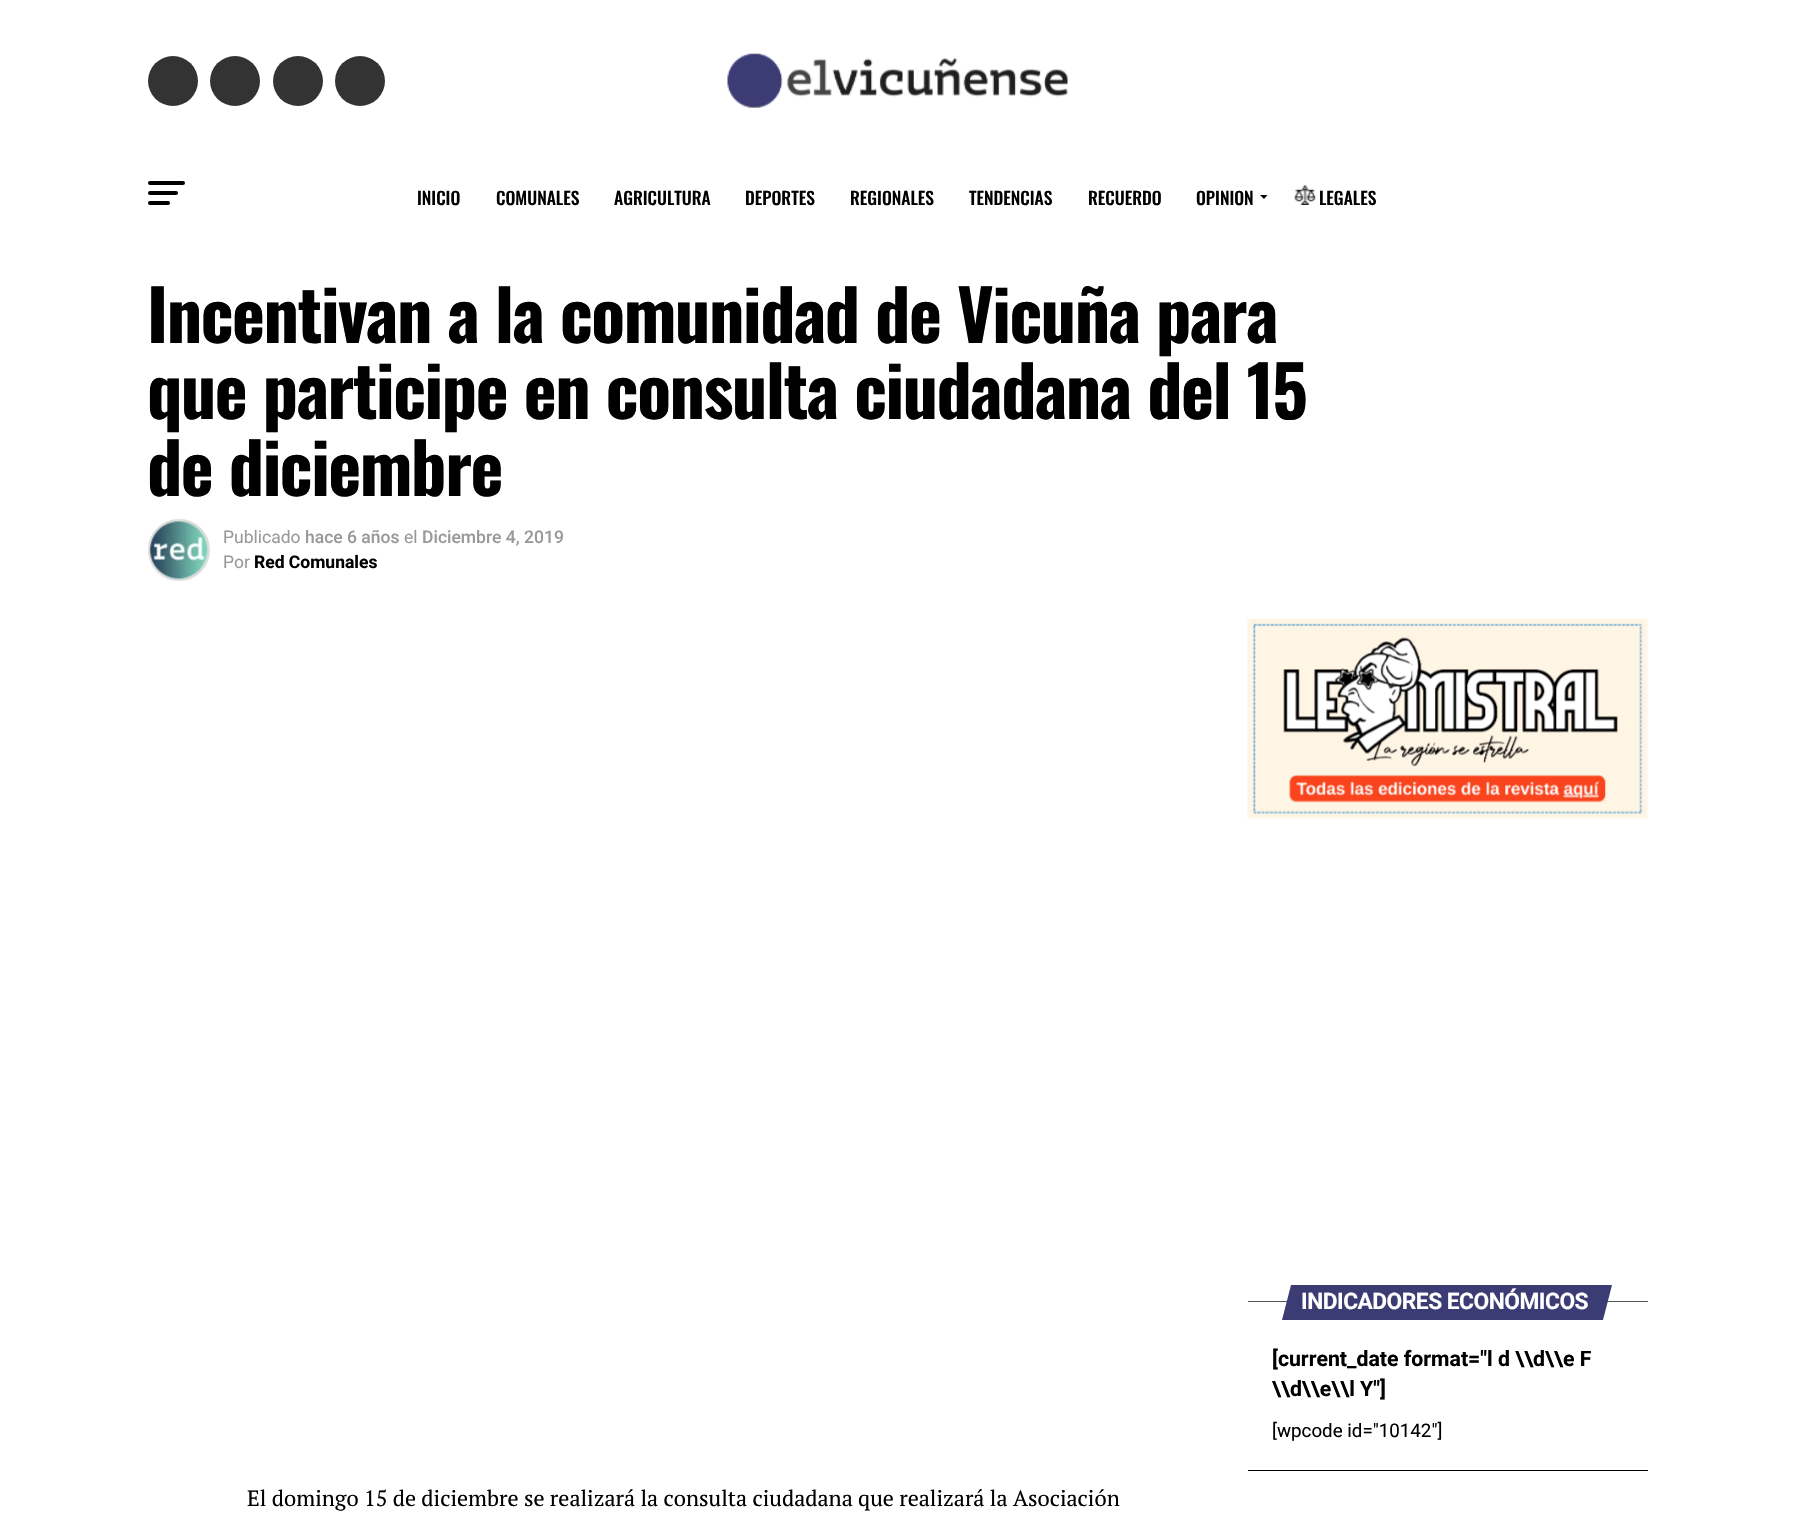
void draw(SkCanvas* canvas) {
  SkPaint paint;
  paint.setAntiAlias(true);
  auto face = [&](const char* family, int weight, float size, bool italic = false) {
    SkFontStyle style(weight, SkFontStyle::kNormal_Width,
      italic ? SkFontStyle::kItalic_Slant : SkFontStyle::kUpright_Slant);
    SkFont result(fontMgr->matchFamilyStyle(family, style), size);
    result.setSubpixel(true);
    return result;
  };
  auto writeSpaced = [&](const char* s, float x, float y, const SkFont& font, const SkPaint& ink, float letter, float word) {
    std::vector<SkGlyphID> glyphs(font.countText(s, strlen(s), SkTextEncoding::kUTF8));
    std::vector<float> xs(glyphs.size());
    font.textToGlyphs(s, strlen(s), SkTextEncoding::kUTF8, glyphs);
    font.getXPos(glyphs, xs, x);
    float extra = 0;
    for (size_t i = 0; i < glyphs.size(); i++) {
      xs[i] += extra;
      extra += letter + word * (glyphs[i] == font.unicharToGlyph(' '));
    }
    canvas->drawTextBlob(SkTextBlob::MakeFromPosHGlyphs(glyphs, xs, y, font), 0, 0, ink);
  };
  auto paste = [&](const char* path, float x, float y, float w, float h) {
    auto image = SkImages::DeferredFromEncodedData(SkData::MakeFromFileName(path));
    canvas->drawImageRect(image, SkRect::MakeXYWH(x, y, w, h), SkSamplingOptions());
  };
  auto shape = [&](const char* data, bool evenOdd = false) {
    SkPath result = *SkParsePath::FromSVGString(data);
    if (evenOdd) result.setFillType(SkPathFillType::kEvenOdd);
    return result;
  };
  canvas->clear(0xffffffff);
  paint.setColor(0xff333333);
  canvas->drawCircle(173, 81, 25, paint);
  canvas->drawCircle(235, 81, 25, paint);
  canvas->drawCircle(298, 81, 25, paint);
  canvas->drawCircle(360, 81, 25, paint);
  paste("img/1.png", 727, 53, 341, 55);
  paint.setColor(0xff000000);
  canvas->drawRoundRect(SkRect::MakeXYWH(148, 181, 37, 4), 2, 2, paint);
  canvas->drawRoundRect(SkRect::MakeXYWH(148, 191, 30, 4), 2, 2, paint);
  canvas->drawRoundRect(SkRect::MakeXYWH(148, 201, 22, 4), 2, 2, paint);
  canvas->drawPath(shape("M1260 195H1267.5L1264 199Z"), paint);
  paste("img/2.png", 1294, 185, 22, 20);
  paint.setStroke(true);
  paint.setStrokeWidth(3);
  paint.setColor(0xffdddddd);
  canvas->drawCircle(179, 550, 29.5f, paint);
  paste("img/3.png", 149, 520, 59, 60);
  paste("img/4.png", 1247, 618, 401, 201);
  paint.setStroke(false);
  paint.setColor(0xff555555);
  canvas->drawRect(SkRect::MakeXYWH(1248, 1301, 400, 1), paint);
  paint.setColor(0xff3c3c75);
  canvas->drawPath(shape("M1291 1285H1612L1603 1320H1282Z"), paint);
  paint.setColor(0xff000000);
  canvas->drawRect(SkRect::MakeXYWH(1248, 1470, 400, 1), paint);
  auto f0 = face("Oswald", 500, 17.5f);
  {
    const struct { const char* s; float x, y; } items[] = {
      {"INICIO", 417, 205},
      {"COMUNALES", 496, 205},
      {"AGRICULTURA", 614, 205},
      {"DEPORTES", 745, 205},
      {"REGIONALES", 850, 205},
      {"TENDENCIAS", 969, 205},
      {"RECUERDO", 1088, 205},
      {"OPINION", 1196, 205},
      {"LEGALES", 1319, 205},
    };
    for (auto [s, x, y] : items) {
      canvas->drawString(s, x, y, f0, paint);
    }
  }
  auto f1 = face("Oswald", 700, 70);
  {
    const struct { const char* s; float x, y; } items[] = {
      {"Incentivan a la comunidad de Vicuña para", 147, 343},
      {"que participe en consulta ciudadana del 15", 147, 419},
      {"de diciembre", 147, 496},
    };
    for (auto [s, x, y] : items) {
      writeSpaced(s, x, y, f1, paint, -1.4f, 0);
    }
  }
  auto f2 = face("Roboto", 400, 17.5f);
  paint.setColor(0xff999999);
  canvas->drawString("Publicado", 223, 543, f2, paint);
  auto f3 = face("Roboto", 500, 17.5f);
  canvas->drawString("hace 6 años", 305, 543, f3, paint);
  canvas->drawString("el", 404, 543, f2, paint);
  canvas->drawString("Diciembre 4, 2019", 422, 543, f3, paint);
  canvas->drawString("Por", 223, 568, f2, paint);
  auto f4 = face("Roboto", 700, 17.5f);
  paint.setColor(0xff000000);
  canvas->drawString("Red Comunales", 254, 568, f4, paint);
  auto f5 = face("Roboto", 700, 22.75f);
  paint.setColor(0xffffffff);
  writeSpaced("INDICADORES ECONÓMICOS", 1301, 1309, f5, paint, -0.5f, 0);
  auto f6 = face("Roboto", 700, 21.25f);
  paint.setColor(0xff000000);
  canvas->drawString("[current_date format=\"l d \\\\d\\\\e F", 1272, 1366, f6, paint);
  canvas->drawString("\\\\d\\\\e\\\\l Y\"]", 1272, 1396, f6, paint);
  auto f7 = face("Roboto", 400, 18.75f);
  canvas->drawString("[wpcode id=\"10142\"]", 1272, 1437, f7, paint);
  auto f8 = face("PT Serif", 400, 22);
  canvas->drawString("El domingo 15 de diciembre se realizará la consulta ciudadana que realizará la Asociación", 247, 1506, f8, paint);
}
